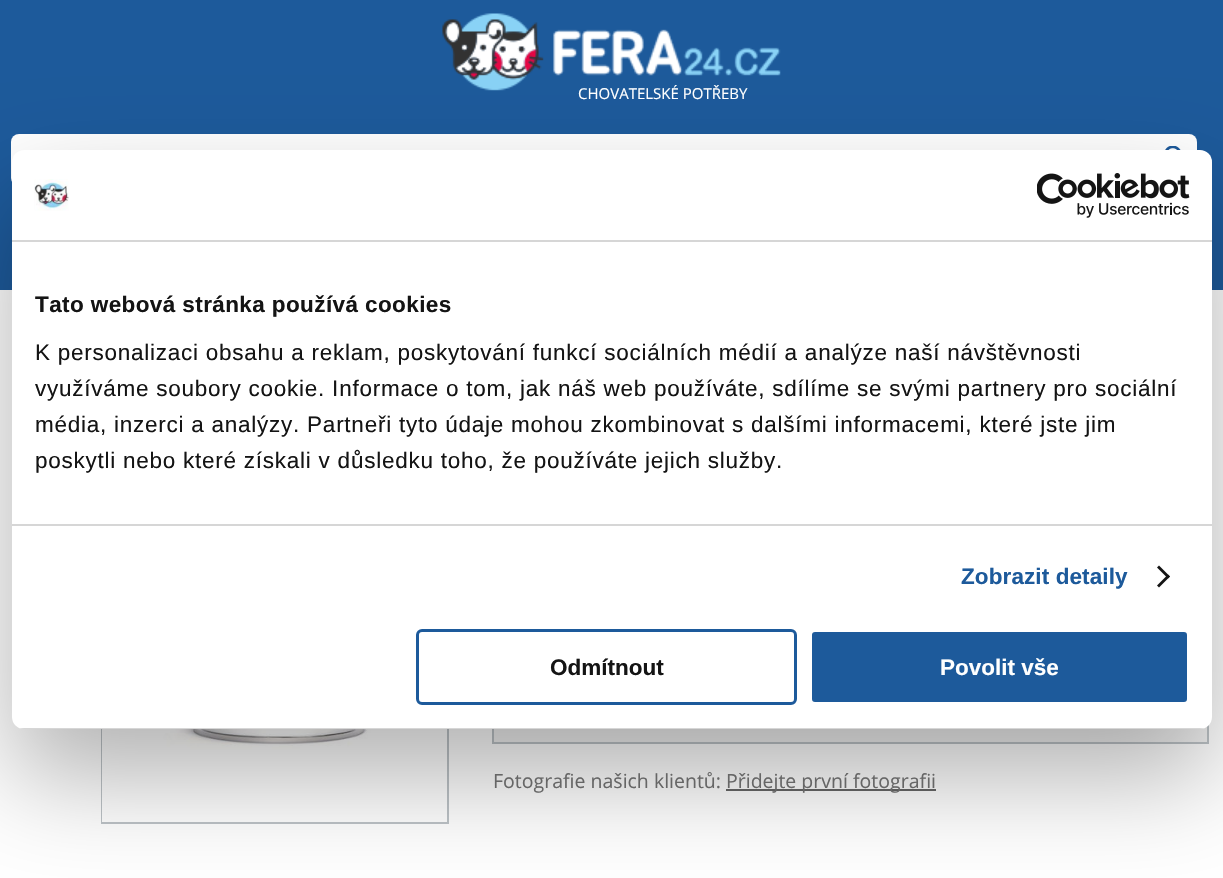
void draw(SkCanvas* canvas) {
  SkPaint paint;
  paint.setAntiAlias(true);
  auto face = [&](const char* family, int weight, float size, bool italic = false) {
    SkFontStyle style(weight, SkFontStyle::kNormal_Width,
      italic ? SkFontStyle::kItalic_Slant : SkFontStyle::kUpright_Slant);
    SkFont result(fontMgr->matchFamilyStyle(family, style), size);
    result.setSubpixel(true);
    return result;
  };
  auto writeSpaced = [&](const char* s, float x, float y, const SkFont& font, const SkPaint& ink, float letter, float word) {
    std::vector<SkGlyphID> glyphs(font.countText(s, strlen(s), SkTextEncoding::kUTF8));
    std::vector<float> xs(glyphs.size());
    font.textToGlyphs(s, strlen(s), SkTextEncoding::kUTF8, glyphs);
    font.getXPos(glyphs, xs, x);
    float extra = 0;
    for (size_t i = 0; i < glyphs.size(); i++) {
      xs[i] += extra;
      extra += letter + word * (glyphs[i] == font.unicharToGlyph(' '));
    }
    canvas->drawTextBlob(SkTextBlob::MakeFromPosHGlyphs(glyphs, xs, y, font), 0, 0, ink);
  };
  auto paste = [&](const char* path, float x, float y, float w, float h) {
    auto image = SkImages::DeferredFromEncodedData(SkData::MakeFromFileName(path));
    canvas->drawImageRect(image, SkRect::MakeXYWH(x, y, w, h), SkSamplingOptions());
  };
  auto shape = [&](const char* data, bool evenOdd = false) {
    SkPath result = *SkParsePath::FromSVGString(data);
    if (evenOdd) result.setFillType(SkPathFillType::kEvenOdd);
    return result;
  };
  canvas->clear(0xffffffff);
  paint.setColor(0xff1d5a9b);
  canvas->drawRect(SkRect::MakeXYWH(0, 0, 1223, 290), paint);
  paste("img/1.png", 442, 13, 339, 78);
  paint.setColor(0xffffffff);
  canvas->drawRoundRect(SkRect::MakeXYWH(11, 134, 1186, 52), 8, 8, paint);
  paste("img/2.png", 1165, 146, 16, 4);
  paint.setStroke(true);
  paint.setStrokeWidth(2);
  paint.setColor(0xffbdc3c7);
  canvas->drawRect(SkRect::MakeXYWH(102, 384, 346, 439), paint);
  paste("img/3.png", 102, 729, 345, 93);
  paint.setStroke(false);
  paint.setColor(0xfff2f2f2);
  canvas->drawRect(SkRect::MakeXYWH(494, 726, 713, 16), paint);
  paint.setStroke(true);
  paint.setColor(0xffbdc3c7);
  canvas->drawRect(SkRect::MakeXYWH(493, 652, 715, 91), paint);
  paint.setStroke(false);
  paint.setColor(0xff666666);
  canvas->drawRect(SkRect::MakeXYWH(726, 789, 210, 2), paint);
  paint.setColor(0x4d000000);
  paint.setMaskFilter(SkMaskFilter::MakeBlur(kNormal_SkBlurStyle, 51));
  canvas->drawRoundRect(SkRect::MakeXYWH(12, 198, 1200, 579), 12, 12, paint);
  paint.setMaskFilter(nullptr);
  paint.setColor(0xffffffff);
  canvas->drawRoundRect(SkRect::MakeXYWH(12, 150, 1200, 579), 12, 12, paint);
  paint.setColor(0xffd6d6d6);
  canvas->drawRect(SkRect::MakeXYWH(12, 240, 1200, 2), paint);
  paste("img/4.png", 34, 179, 35, 32);
  paste("img/5.png", 1037, 173, 153, 45);
  canvas->drawRect(SkRect::MakeXYWH(12, 524, 1200, 2), paint);
  paint.setColor(0xff141414);
  canvas->drawPath(shape("M1159 565.5L1170 576.5L1168 578.5L1157 567.5Z"), paint);
  canvas->drawPath(shape("M1168 574.5L1170 576.5L1159 587.5L1157 585.5Z"), paint);
  canvas->save();
  canvas->clipPath(shape("M24 150H1200C1206.5 150 1212 155.5 1212 162V717C1212 723.5 1206.5 729 1200 729H24C17.5 729 12 723.5 12 717V162C12 155.5 17.5 150 24 150Z"), true);
  paint.setColor(0xffd6d6d6);
  canvas->drawRect(SkRect::MakeXYWH(12, 728, 1200, 1), paint);
  canvas->restore();
  paint.setStroke(true);
  paint.setStrokeWidth(3);
  paint.setColor(0xff1d5a9b);
  canvas->drawRoundRect(SkRect::MakeXYWH(417.5f, 630.5f, 378, 73), 4.5f, 4.5f, paint);
  paint.setStroke(false);
  canvas->drawRoundRect(SkRect::MakeXYWH(810.5f, 630.5f, 378, 73), 4.5f, 4.5f, paint);
  paint.setStroke(true);
  paint.setColor(0xffffffff);
  canvas->drawRoundRect(SkRect::MakeXYWH(810.5f, 630.5f, 378, 73), 4.5f, 4.5f, paint);
  auto f0 = face("Open Sans", 400, 15);
  paint.setStroke(false);
  canvas->drawString("CHOVATELSKÉ POTŘEBY", 578, 99, f0, paint);
  auto f1 = face("Open Sans", 400, 19.5f);
  paint.setColor(0xff666666);
  canvas->drawString("Fotografie našich klientů:", 493, 788, f1, paint);
  canvas->drawString("Přidejte první fotografii", 726, 788, f1, paint);
  auto f2 = face("Liberation Sans", 700, 22.5f);
  paint.setColor(0xff141414);
  writeSpaced("Tato webová stránka používá cookies", 35, 312, f2, paint, 0.4f, 0);
  auto f3 = face("Liberation Sans", 400, 22.5f);
  {
    const struct { const char* s; float x, y; } items[] = {
      {"K personalizaci obsahu a reklam, poskytování funkcí sociálních médií a analýze naší návštěvnosti", 35, 360},
      {"využíváme soubory cookie. Informace o tom, jak náš web používáte, sdílíme se svými partnery pro sociální", 35, 396},
      {"média, inzerci a analýzy. Partneři tyto údaje mohou zkombinovat s dalšími informacemi, které jste jim", 35, 432},
      {"poskytli nebo které získali v důsledku toho, že používáte jejich služby.", 35, 468},
    };
    for (auto [s, x, y] : items) {
      writeSpaced(s, x, y, f3, paint, 0.75f, 0);
    }
  }
  paint.setColor(0xff1d5a9b);
  writeSpaced("Zobrazit detaily", 961, 584, f2, paint, 0.1f, 0);
  paint.setColor(0xff141414);
  canvas->drawString("Odmítnout", 550, 675, f2, paint);
  paint.setColor(0xffffffff);
  canvas->drawString("Povolit vše", 940, 675, f2, paint);
}
